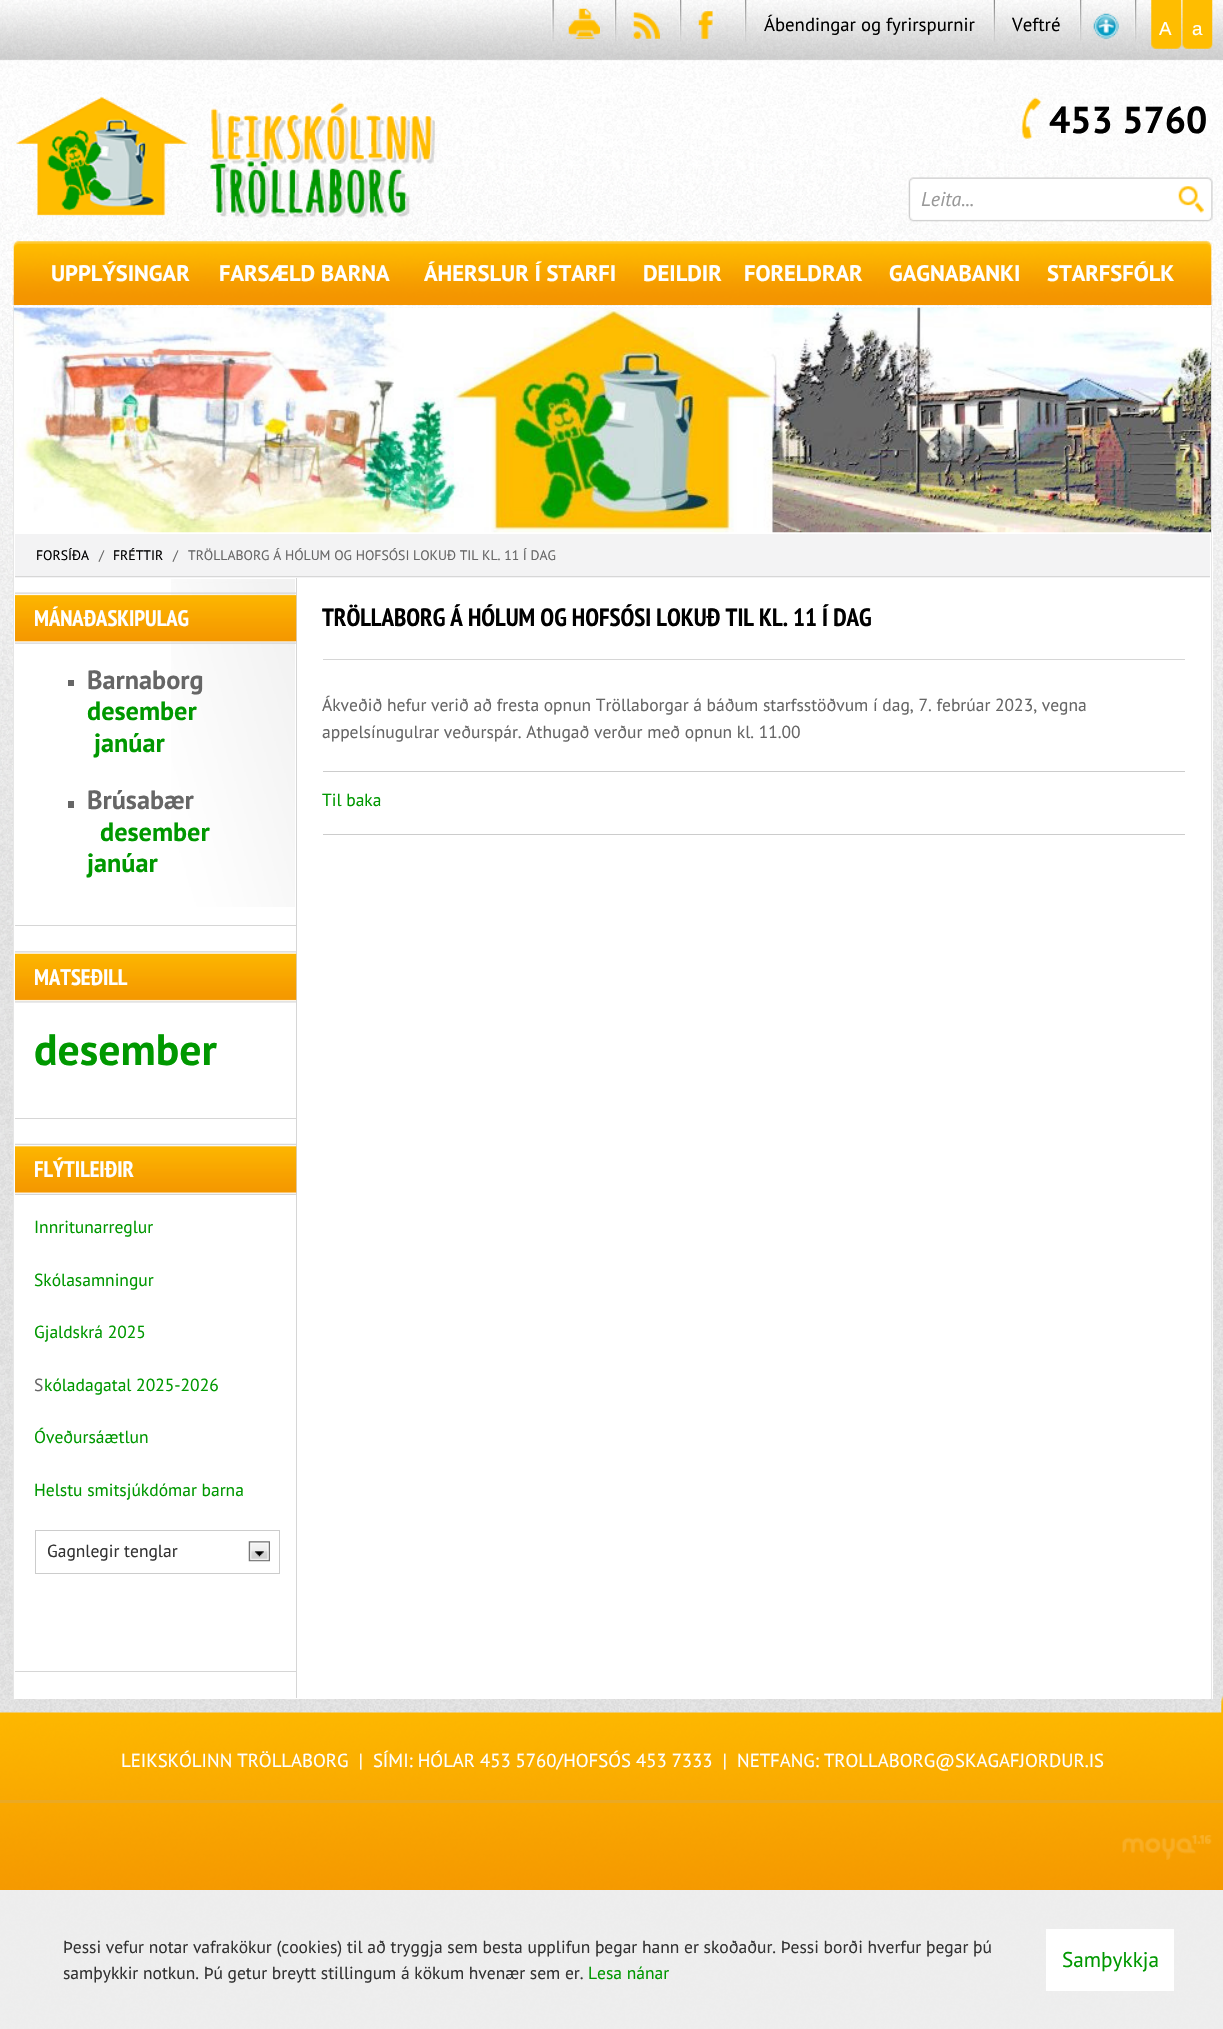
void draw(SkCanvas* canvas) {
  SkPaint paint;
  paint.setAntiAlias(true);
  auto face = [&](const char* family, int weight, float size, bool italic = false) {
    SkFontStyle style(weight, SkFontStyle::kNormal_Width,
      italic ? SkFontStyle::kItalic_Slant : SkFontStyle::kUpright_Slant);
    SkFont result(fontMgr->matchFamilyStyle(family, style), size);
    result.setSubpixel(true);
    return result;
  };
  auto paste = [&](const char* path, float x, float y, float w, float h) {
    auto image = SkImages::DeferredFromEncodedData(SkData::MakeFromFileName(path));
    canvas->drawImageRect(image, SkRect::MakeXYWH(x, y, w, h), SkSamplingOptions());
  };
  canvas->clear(0xffffffff);
  paste("img/1.png", 0, 937, 1223, 1092);
  paste("img/2.png", 0, 0, 1223, 938);
  paste("img/3.png", 551, 0, 3, 41);
  paste("img/4.png", 614, 0, 3, 42);
  paste("img/5.png", 568, 8, 32, 31);
  paste("img/6.png", 679, 0, 3, 42);
  paste("img/7.png", 633, 12, 27, 27);
  paste("img/8.png", 744, 0, 3, 42);
  paste("img/9.png", 698, 11, 15, 28);
  paste("img/10.png", 992, 0, 3, 42);
  paste("img/11.png", 1079, 0, 3, 42);
  paste("img/12.png", 1134, 0, 3, 42);
  paste("img/13.png", 1093, 13, 26, 26);
  paste("img/14.png", 1151, 0, 31, 49);
  paste("img/15.png", 1182, 0, 31, 49);
  paste("img/16.png", 16, 97, 419, 121);
  paste("img/17.png", 1021, 97, 21, 42);
  {
    const struct { float x, y, w, h; SkColor color; } items[] = {
      {13, 306, 1200, 1, 0xffffffff},
      {14, 530, 1199, 1169, 0xffffffff},
      {1211, 530, 1, 1169, 0xffe6e6e6},
      {1211, 306, 1, 227, 0xffe6e6e6},
      {13, 530, 1, 1169, 0xffe6e6e6},
      {13, 306, 1, 227, 0xffe6e6e6},
    };
    for (auto [x, y, w, h, color] : items) {
      paint.setColor(color);
      canvas->drawRect(SkRect::MakeXYWH(x, y, w, h), paint);
    }
  }
  paste("img/18.png", 13, 307, 1199, 226);
  paste("img/19.png", 908, 177, 305, 45);
  paste("img/20.png", 12, 241, 1201, 64);
  paint.setColor(0xfff3f3f4);
  canvas->drawRect(SkRect::MakeXYWH(15, 534, 1195, 44), paint);
  paint.setColor(0xffd7d7d7);
  canvas->drawRect(SkRect::MakeXYWH(15, 576, 1195, 1), paint);
  paste("img/21.png", 171, 579, 124, 328);
  paint.setColor(0xffd6d6d6);
  canvas->drawRect(SkRect::MakeXYWH(296, 578, 1, 1120), paint);
  canvas->drawRect(SkRect::MakeXYWH(15, 925, 281, 1), paint);
  paste("img/22.png", 15, 592, 282, 52);
  {
    const struct { float x, y, w, h; SkColor color; } items[] = {
      {68, 680, 6, 6, 0xff666666},
      {68, 801, 6, 7, 0xff666666},
      {15, 1118, 281, 1, 0xffd6d6d6},
    };
    for (auto [x, y, w, h, color] : items) {
      paint.setColor(color);
      canvas->drawRect(SkRect::MakeXYWH(x, y, w, h), paint);
    }
  }
  paste("img/23.png", 15, 951, 282, 52);
  canvas->drawRect(SkRect::MakeXYWH(15, 1671, 281, 1), paint);
  paste("img/24.png", 15, 1143, 282, 52);
  paste("img/25.png", 248, 1541, 22, 21);
  paint.setStroke(true);
  paint.setStrokeWidth(1);
  paint.setColor(0xffcccccc);
  canvas->drawRect(SkRect::MakeXYWH(35.5f, 1530.5f, 244, 43), paint);
  paint.setStroke(false);
  {
    const struct { float x, y, w, h; SkColor color; } items[] = {
      {323, 659, 862, 1, 0xffd6d6d6},
      {323, 834, 862, 1, 0xffcccccc},
      {323, 771, 862, 1, 0xffcccccc},
    };
    for (auto [x, y, w, h, color] : items) {
      paint.setColor(color);
      canvas->drawRect(SkRect::MakeXYWH(x, y, w, h), paint);
    }
  }
  paste("img/26.png", 1221, 1695, 2, 18);
  paste("img/27.png", 0, 1712, 1223, 178);
  paint.setColor(0xffeaa923);
  canvas->drawRect(SkRect::MakeXYWH(0, 1800, 1223, 3), paint);
  paste("img/28.png", 1122, 1835, 90, 25);
  paint.setColor(0xe6eeeeee);
  canvas->drawRect(SkRect::MakeXYWH(0, 1890, 1223, 139), paint);
  paint.setColor(0xffffffff);
  canvas->drawRect(SkRect::MakeXYWH(1046, 1929, 128, 62), paint);
  auto f0 = face("PT Sans", 400, 18.75f);
  paint.setColor(0xff000000);
  canvas->drawString("Ábendingar og fyrirspurnir", 764, 31, f0, paint);
  canvas->drawString("Veftré", 1012, 31, f0, paint);
  auto f1 = face("Liberation Sans", 400, 18.75f);
  paint.setColor(0xffffffff);
  canvas->drawString("A", 1159, 35, f1, paint);
  canvas->drawString("a", 1192, 35, f1, paint);
  auto f2 = face("PT Sans", 700, 37.5f);
  paint.setColor(0xff000000);
  canvas->drawString("453 5760", 1049, 133, f2, paint);
  auto f3 = face("PT Sans", 400, 20, true);
  paint.setColor(0xff999999);
  canvas->drawString("Leita...", 921, 206, f3, paint);
  auto f4 = face("PT Sans", 700, 22.5f);
  paint.setColor(0xffffffff);
  {
    const struct { const char* s; float x, y; } items[] = {
      {"UPPLÝSINGAR", 51, 281},
      {"FARSÆLD BARNA", 219, 281},
      {"ÁHERSLUR Í STARFI", 424, 281},
      {"DEILDIR", 643, 281},
      {"FORELDRAR", 744, 281},
      {"GAGNABANKI", 889, 281},
      {"STARFSFÓLK", 1047, 281},
    };
    for (auto [s, x, y] : items) {
      canvas->drawString(s, x, y, f4, paint);
    }
  }
  auto f5 = face("PT Sans", 400, 13.75f);
  paint.setColor(0xff000000);
  canvas->drawString("FORSÍÐA", 36, 560, f5, paint);
  paint.setColor(0xff666666);
  canvas->drawString("/", 99, 560, f5, paint);
  paint.setColor(0xff000000);
  canvas->drawString("FRÉTTIR", 113, 560, f5, paint);
  paint.setColor(0xff666666);
  canvas->drawString("/", 173, 560, f5, paint);
  canvas->drawString("TRÖLLABORG Á HÓLUM OG HOFSÓSI LOKUÐ TIL KL. 11 Í DAG", 188, 560, f5, paint);
  auto f6 = face("PT Sans Narrow", 700, 22.5f);
  paint.setColor(0xffffffff);
  canvas->drawString("MÁNAÐASKIPULAG", 34, 626, f6, paint);
  auto f7 = face("PT Sans", 700, 26.25f);
  paint.setColor(0xff666666);
  canvas->drawString("Barnaborg", 87, 689, f7, paint);
  paint.setColor(0xff009800);
  canvas->drawString("desember", 87, 720, f7, paint);
  canvas->drawString("janúar", 94, 752, f7, paint);
  paint.setColor(0xff666666);
  canvas->drawString("Brúsabær", 87, 809, f7, paint);
  paint.setColor(0xff009800);
  canvas->drawString("desember", 100, 841, f7, paint);
  canvas->drawString("janúar", 87, 872, f7, paint);
  paint.setColor(0xffffffff);
  canvas->drawString("MATSEÐILL", 34, 985, f6, paint);
  auto f8 = face("PT Sans", 700, 43.75f);
  paint.setColor(0xff009800);
  canvas->drawString("desember", 34, 1065, f8, paint);
  paint.setColor(0xffffffff);
  canvas->drawString("FLÝTILEIÐIR", 34, 1177, f6, paint);
  auto f9 = face("PT Sans", 400, 17.5f);
  paint.setColor(0xff009800);
  {
    const struct { const char* s; float x, y; } items[] = {
      {"Innritunarreglur", 34, 1233},
      {"Skólasamningur", 34, 1286},
      {"Gjaldskrá 2025", 34, 1338},
    };
    for (auto [s, x, y] : items) {
      canvas->drawString(s, x, y, f9, paint);
    }
  }
  paint.setColor(0xff666666);
  canvas->drawString("S", 34, 1391, f9, paint);
  paint.setColor(0xff009800);
  {
    const struct { const char* s; float x, y; } items[] = {
      {"kóladagatal 2025-2026", 44, 1391},
      {"Óveðursáætlun", 34, 1443},
      {"Helstu smitsjúkdómar barna", 34, 1496},
    };
    for (auto [s, x, y] : items) {
      canvas->drawString(s, x, y, f9, paint);
    }
  }
  paint.setColor(0xff333333);
  canvas->drawString("Gagnlegir tenglar", 47, 1557, f9, paint);
  auto f10 = face("PT Sans Narrow", 700, 25);
  paint.setColor(0xff000000);
  canvas->drawString("TRÖLLABORG Á HÓLUM OG HOFSÓSI LOKUÐ TIL KL. 11 Í DAG", 322, 626, f10, paint);
  paint.setColor(0xff666666);
  canvas->drawString("Ákveðið hefur verið að fresta opnun Tröllaborgar á báðum starfsstöðvum í dag, 7. febrúar 2023, vegna", 322, 711, f9, paint);
  canvas->drawString("appelsínugulrar veðurspár. Athugað verður með opnun kl. 11.00", 322, 738, f9, paint);
  paint.setColor(0xff009800);
  canvas->drawString("Til baka", 322, 806, f9, paint);
  paint.setColor(0xffffffff);
  canvas->drawString("LEIKSKÓLINN TRÖLLABORG  |  SÍMI: HÓLAR 453 5760/HOFSÓS 453 7333  |  NETFANG: TROLLABORG@SKAGAFJORDUR.IS", 121, 1767, f0, paint);
  paint.setColor(0xff333333);
  canvas->drawString("Þessi vefur notar vafrakökur (cookies) til að tryggja sem besta upplifun þegar hann er skoðaður. Þessi borði hverfur þegar þú", 63, 1953, f9, paint);
  canvas->drawString("samþykkir notkun. Þú getur breytt stillingum á kökum hvenær sem er.", 63, 1979, f9, paint);
  paint.setColor(0xff009800);
  canvas->drawString("Lesa nánar", 588, 1979, f9, paint);
  auto f11 = face("PT Sans", 400, 21.25f);
  canvas->drawString("Samþykkja", 1062, 1967, f11, paint);
}
